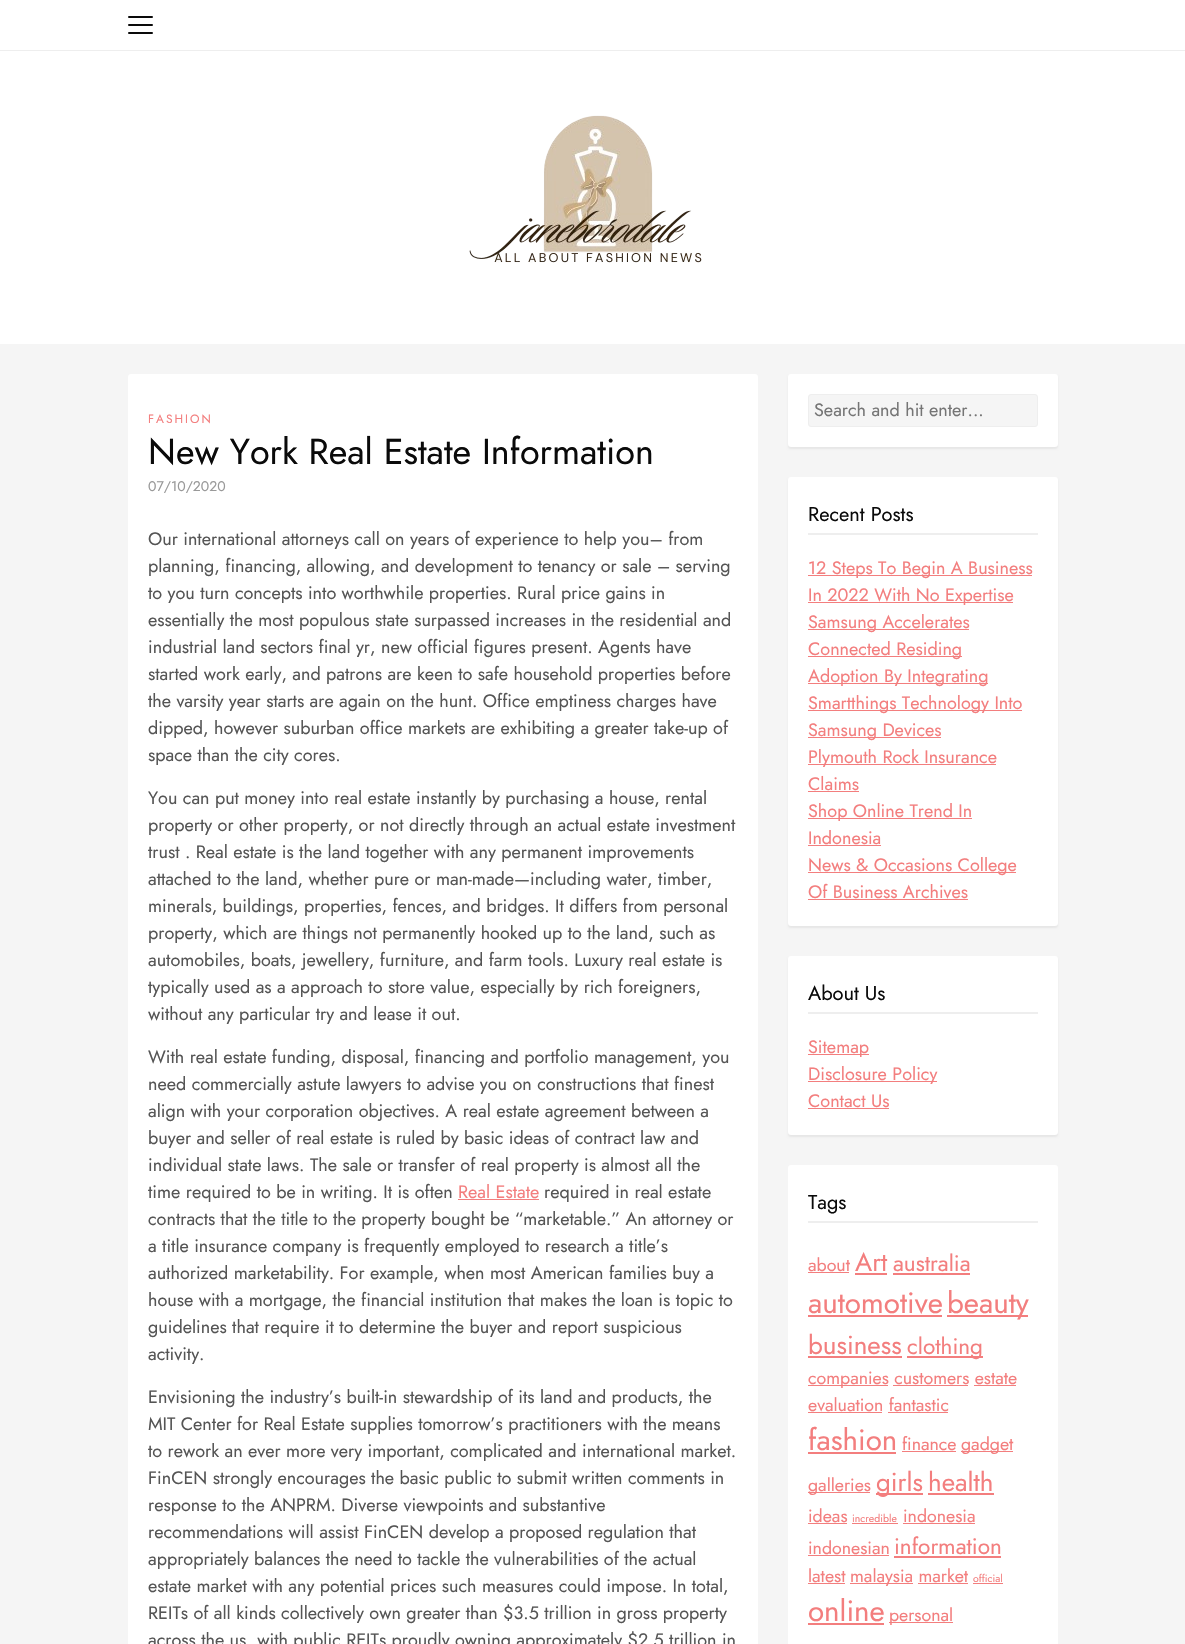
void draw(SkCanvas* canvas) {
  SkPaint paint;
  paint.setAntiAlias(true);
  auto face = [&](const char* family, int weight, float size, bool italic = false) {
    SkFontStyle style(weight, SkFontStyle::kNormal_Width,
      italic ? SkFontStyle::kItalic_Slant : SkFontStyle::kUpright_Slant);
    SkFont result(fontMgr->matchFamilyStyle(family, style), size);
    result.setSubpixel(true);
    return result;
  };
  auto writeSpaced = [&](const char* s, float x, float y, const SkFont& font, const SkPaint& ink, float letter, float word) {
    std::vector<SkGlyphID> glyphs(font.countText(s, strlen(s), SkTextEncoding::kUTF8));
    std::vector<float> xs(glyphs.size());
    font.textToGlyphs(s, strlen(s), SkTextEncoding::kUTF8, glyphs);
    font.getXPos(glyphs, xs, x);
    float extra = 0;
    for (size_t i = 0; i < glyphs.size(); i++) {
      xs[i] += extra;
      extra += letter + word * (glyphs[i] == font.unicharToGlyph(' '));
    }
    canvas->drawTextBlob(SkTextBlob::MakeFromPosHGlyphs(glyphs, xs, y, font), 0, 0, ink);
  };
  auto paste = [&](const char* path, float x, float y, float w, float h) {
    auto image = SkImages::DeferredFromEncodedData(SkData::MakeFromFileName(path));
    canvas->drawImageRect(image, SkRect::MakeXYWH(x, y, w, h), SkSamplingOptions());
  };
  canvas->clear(0xfff5f5f5);
  paint.setColor(0xffffffff);
  canvas->drawRect(SkRect::MakeXYWH(0, 0, 1185, 344), paint);
  paint.setColor(0xffeeeeee);
  canvas->drawRect(SkRect::MakeXYWH(0, 50, 1185, 1), paint);
  paint.setColor(0xff0a0a0a);
  canvas->drawRoundRect(SkRect::MakeXYWH(128, 16, 25, 2), 1, 1, paint);
  canvas->drawRoundRect(SkRect::MakeXYWH(128, 24, 25, 2), 1, 1, paint);
  canvas->drawRoundRect(SkRect::MakeXYWH(128, 32, 25, 2), 1, 1, paint);
  paste("img/1.png", 469, 115, 233, 148);
  paint.setColor(0xffffffff);
  canvas->drawRoundRect(SkRect::MakeXYWH(128, 374, 630, 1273), 3, 3, paint);
  paint.setColor(0xfff37e7e);
  canvas->drawRect(SkRect::MakeXYWH(458, 1199, 81, 1), paint);
  paint.setColor(0x0f000000);
  paint.setMaskFilter(SkMaskFilter::MakeBlur(kNormal_SkBlurStyle, 1));
  canvas->drawRoundRect(SkRect::MakeXYWH(788, 376, 270, 73), 3, 3, paint);
  paint.setMaskFilter(nullptr);
  paint.setColor(0xffffffff);
  canvas->drawRoundRect(SkRect::MakeXYWH(788, 374, 270, 73), 3, 3, paint);
  paint.setColor(0xfff5f5f5);
  canvas->drawRoundRect(SkRect::MakeXYWH(808.5f, 394.5f, 229, 32), 2.5f, 2.5f, paint);
  paint.setStroke(true);
  paint.setStrokeWidth(1);
  paint.setColor(0xffeeeeee);
  canvas->drawRoundRect(SkRect::MakeXYWH(808.5f, 394.5f, 229, 32), 2.5f, 2.5f, paint);
  paint.setStroke(false);
  paint.setColor(0x0f000000);
  paint.setMaskFilter(SkMaskFilter::MakeBlur(kNormal_SkBlurStyle, 1));
  canvas->drawRoundRect(SkRect::MakeXYWH(788, 479, 270, 449), 3, 3, paint);
  paint.setMaskFilter(nullptr);
  paint.setColor(0xffffffff);
  canvas->drawRoundRect(SkRect::MakeXYWH(788, 477, 270, 449), 3, 3, paint);
  {
    const struct { float x, y, w, h; SkColor color; } items[] = {
      {808, 533, 230, 2, 0xffeeeeee},
      {808, 575, 224, 1, 0xfff37e7e},
      {808, 602, 205, 1, 0xfff37e7e},
      {808, 629, 161, 1, 0xfff37e7e},
      {808, 656, 154, 1, 0xfff37e7e},
      {808, 683, 180, 1, 0xfff37e7e},
      {808, 710, 214, 1, 0xfff37e7e},
      {808, 737, 133, 1, 0xfff37e7e},
      {808, 764, 188, 1, 0xfff37e7e},
      {808, 791, 51, 1, 0xfff37e7e},
      {808, 818, 164, 1, 0xfff37e7e},
      {808, 845, 73, 1, 0xfff37e7e},
      {808, 872, 208, 1, 0xfff37e7e},
      {808, 899, 160, 1, 0xfff37e7e},
    };
    for (auto [x, y, w, h, color] : items) {
      paint.setColor(color);
      canvas->drawRect(SkRect::MakeXYWH(x, y, w, h), paint);
    }
  }
  paint.setColor(0x0f000000);
  paint.setMaskFilter(SkMaskFilter::MakeBlur(kNormal_SkBlurStyle, 1));
  canvas->drawRoundRect(SkRect::MakeXYWH(788, 958, 270, 179), 3, 3, paint);
  paint.setMaskFilter(nullptr);
  paint.setColor(0xffffffff);
  canvas->drawRoundRect(SkRect::MakeXYWH(788, 956, 270, 179), 3, 3, paint);
  {
    const struct { float x, y, w, h; SkColor color; } items[] = {
      {808, 1012, 230, 2, 0xffeeeeee},
      {808, 1054, 61, 1, 0xfff37e7e},
      {808, 1081, 129, 1, 0xfff37e7e},
      {808, 1108, 81, 1, 0xfff37e7e},
    };
    for (auto [x, y, w, h, color] : items) {
      paint.setColor(color);
      canvas->drawRect(SkRect::MakeXYWH(x, y, w, h), paint);
    }
  }
  paint.setColor(0xffffffff);
  canvas->drawRoundRect(SkRect::MakeXYWH(788, 1165, 270, 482), 3, 3, paint);
  {
    const struct { float x, y, w, h; SkColor color; } items[] = {
      {808, 1221, 230, 2, 0xffeeeeee},
      {808, 1272, 41, 1, 0xfff37e7e},
      {855, 1273, 32, 2, 0xfff37e7e},
      {893, 1273, 77, 2, 0xfff37e7e},
      {808, 1315, 134, 2, 0xfff37e7e},
      {947, 1315, 81, 2, 0xfff37e7e},
      {808, 1356, 94, 2, 0xfff37e7e},
      {907, 1356, 76, 2, 0xfff37e7e},
      {808, 1385, 80, 1, 0xfff37e7e},
      {893, 1385, 75, 1, 0xfff37e7e},
      {974, 1385, 42, 1, 0xfff37e7e},
      {808, 1412, 74, 1, 0xfff37e7e},
      {888, 1412, 60, 1, 0xfff37e7e},
      {808, 1452, 88, 2, 0xfff37e7e},
      {902, 1451, 54, 1, 0xfff37e7e},
      {961, 1451, 52, 1, 0xfff37e7e},
      {808, 1492, 62, 1, 0xfff37e7e},
      {876, 1493, 47, 2, 0xfff37e7e},
      {928, 1493, 66, 2, 0xfff37e7e},
      {808, 1523, 39, 1, 0xfff37e7e},
      {852, 1523, 46, 1, 0xfff37e7e},
      {903, 1523, 72, 1, 0xfff37e7e},
      {808, 1555, 81, 1, 0xfff37e7e},
      {894, 1556, 107, 2, 0xfff37e7e},
      {808, 1583, 37, 1, 0xfff37e7e},
      {850, 1583, 63, 1, 0xfff37e7e},
      {973, 1583, 30, 1, 0xfff37e7e},
      {918, 1583, 50, 1, 0xfff37e7e},
      {808, 1623, 76, 2, 0xfff37e7e},
      {889, 1622, 64, 1, 0xfff37e7e},
    };
    for (auto [x, y, w, h, color] : items) {
      paint.setColor(color);
      canvas->drawRect(SkRect::MakeXYWH(x, y, w, h), paint);
    }
  }
  auto f0 = face("Jost", 400, 12);
  writeSpaced("FASHION", 148, 423, f0, paint, 2, 0);
  auto f1 = face("Jost", 400, 36);
  paint.setColor(0xff0a0a0a);
  canvas->drawString("New York Real Estate Information", 148, 464, f1, paint);
  auto f2 = face("Jost", 400, 14);
  paint.setColor(0xff999999);
  canvas->drawString("07/10/2020", 148, 491, f2, paint);
  auto f3 = face("Jost", 400, 18);
  paint.setColor(0xff555555);
  {
    const struct { const char* s; float x, y; } items[] = {
      {"Our international attorneys call on years of experience to help you– from", 148, 545},
      {"planning, financing, allowing, and development to tenancy or sale – serving", 148, 572},
      {"to you turn concepts into worthwhile properties. Rural price gains in", 148, 599},
      {"essentially the most populous state surpassed increases in the residential and", 148, 626},
      {"industrial land sectors final yr, new official figures present. Agents have", 148, 653},
      {"started work early, and patrons are keen to safe household properties before", 148, 680},
      {"the varsity year starts are again on the hunt. Office emptiness charges have", 148, 707},
      {"dipped, however suburban office markets are exhibiting a greater take-up of", 148, 734},
      {"space than the city cores.", 148, 761},
      {"You can put money into real estate instantly by purchasing a house, rental", 148, 804},
      {"property or other property, or not directly through an actual estate investment", 148, 831},
      {"trust . Real estate is the land together with any permanent improvements", 148, 858},
      {"attached to the land, whether pure or man-made—including water, timber,", 148, 885},
      {"minerals, buildings, properties, fences, and bridges. It differs from personal", 148, 912},
      {"property, which are things not permanently hooked up to the land, such as", 148, 939},
      {"automobiles, boats, jewellery, furniture, and farm tools. Luxury real estate is", 148, 966},
      {"typically used as a approach to store value, especially by rich foreigners,", 148, 993},
      {"without any particular try and lease it out.", 148, 1020},
      {"With real estate funding, disposal, financing and portfolio management, you", 148, 1063},
      {"need commercially astute lawyers to advise you on constructions that finest", 148, 1090},
      {"align with your corporation objectives. A real estate agreement between a", 148, 1117},
      {"buyer and seller of real estate is ruled by basic ideas of contract law and", 148, 1144},
      {"individual state laws. The sale or transfer of real property is almost all the", 148, 1171},
      {"time required to be in writing. It is often", 148, 1198},
    };
    for (auto [s, x, y] : items) {
      canvas->drawString(s, x, y, f3, paint);
    }
  }
  paint.setColor(0xfff37e7e);
  canvas->drawString("Real Estate", 458, 1198, f3, paint);
  paint.setColor(0xff555555);
  {
    const struct { const char* s; float x, y; } items[] = {
      {"required in real estate", 544, 1198},
      {"contracts that the title to the property bought be “marketable.” An attorney or", 148, 1225},
      {"a title insurance company is frequently employed to research a title’s", 148, 1252},
      {"authorized marketability. For example, when most American families buy a", 148, 1279},
      {"house with a mortgage, the financial institution that makes the loan is topic to", 148, 1306},
      {"guidelines that require it to determine the buyer and report suspicious", 148, 1333},
      {"activity.", 148, 1360},
      {"Envisioning the industry’s built-in stewardship of its land and products, the", 148, 1403},
      {"MIT Center for Real Estate supplies tomorrow’s practitioners with the means", 148, 1430},
      {"to rework an ever more very important, complicated and international market.", 148, 1457},
      {"FinCEN strongly encourages the basic public to submit written comments in", 148, 1484},
      {"response to the ANPRM. Diverse viewpoints and substantive", 148, 1511},
      {"recommendations will assist FinCEN develop a proposed regulation that", 148, 1538},
      {"appropriately balances the need to tackle the vulnerabilities of the actual", 148, 1565},
      {"estate market with any potential prices such measures could impose. In total,", 148, 1592},
      {"REITs of all kinds collectively own greater than $3.5 trillion in gross property", 148, 1619},
      {"across the us, with public REITs proudly owning approximately $2.5 trillion in", 148, 1646},
    };
    for (auto [s, x, y] : items) {
      canvas->drawString(s, x, y, f3, paint);
    }
  }
  paint.setColor(0xff757575);
  canvas->drawString("Search and hit enter...", 814, 416, f3, paint);
  auto f4 = face("Jost", 400, 20);
  paint.setColor(0xff0a0a0a);
  canvas->drawString("Recent Posts", 808, 521, f4, paint);
  paint.setColor(0xfff37e7e);
  {
    const struct { const char* s; float x, y; } items[] = {
      {"12 Steps To Begin A Business", 808, 574},
      {"In 2022 With No Expertise", 808, 601},
      {"Samsung Accelerates", 808, 628},
      {"Connected Residing", 808, 655},
      {"Adoption By Integrating", 808, 682},
      {"Smartthings Technology Into", 808, 709},
      {"Samsung Devices", 808, 736},
      {"Plymouth Rock Insurance", 808, 763},
      {"Claims", 808, 790},
      {"Shop Online Trend In", 808, 817},
      {"Indonesia", 808, 844},
      {"News & Occasions College", 808, 871},
      {"Of Business Archives", 808, 898},
    };
    for (auto [s, x, y] : items) {
      canvas->drawString(s, x, y, f3, paint);
    }
  }
  paint.setColor(0xff0a0a0a);
  canvas->drawString("About Us", 808, 1000, f4, paint);
  paint.setColor(0xfff37e7e);
  {
    const struct { const char* s; float x, y; } items[] = {
      {"Sitemap", 808, 1053},
      {"Disclosure Policy", 808, 1080},
      {"Contact Us", 808, 1107},
    };
    for (auto [s, x, y] : items) {
      canvas->drawString(s, x, y, f3, paint);
    }
  }
  paint.setColor(0xff0a0a0a);
  canvas->drawString("Tags", 808, 1209, f4, paint);
  auto f5 = face("Jost", 400, 17.75f);
  paint.setColor(0xfff37e7e);
  canvas->drawString("about", 808, 1271, f5, paint);
  auto f6 = face("Jost", 400, 26);
  canvas->drawString("Art", 855, 1271, f6, paint);
  auto f7 = face("Jost", 400, 22.5f);
  canvas->drawString("australia", 893, 1271, f7, paint);
  auto f8 = face("Jost", 400, 29.5f);
  canvas->drawString("automotive", 808, 1313, f8, paint);
  canvas->drawString("beauty", 947, 1313, f8, paint);
  canvas->drawString("business", 808, 1354, f6, paint);
  canvas->drawString("clothing", 907, 1354, f7, paint);
  canvas->drawString("companies customers estate", 808, 1384, f5, paint);
  canvas->drawString("evaluation fantastic", 808, 1411, f5, paint);
  canvas->drawString("fashion", 808, 1450, f8, paint);
  {
    const struct { const char* s; float x, y; } items[] = {
      {"finance", 902, 1450},
      {"gadget", 961, 1450},
      {"galleries", 808, 1491},
    };
    for (auto [s, x, y] : items) {
      canvas->drawString(s, x, y, f5, paint);
    }
  }
  canvas->drawString("girls", 876, 1491, f6, paint);
  canvas->drawString("health", 928, 1491, f6, paint);
  canvas->drawString("ideas", 808, 1522, f5, paint);
  auto f9 = face("Jost", 400, 10.5f);
  canvas->drawString("incredible", 852, 1522, f9, paint);
  canvas->drawString("indonesia", 903, 1522, f5, paint);
  canvas->drawString("indonesian", 808, 1554, f5, paint);
  canvas->drawString("information", 894, 1554, f7, paint);
  canvas->drawString("latest", 808, 1582, f5, paint);
  canvas->drawString("malaysia market", 850, 1582, f5, paint);
  canvas->drawString("official", 973, 1582, f9, paint);
  canvas->drawString("online", 808, 1621, f8, paint);
  canvas->drawString("personal", 889, 1621, f5, paint);
}
